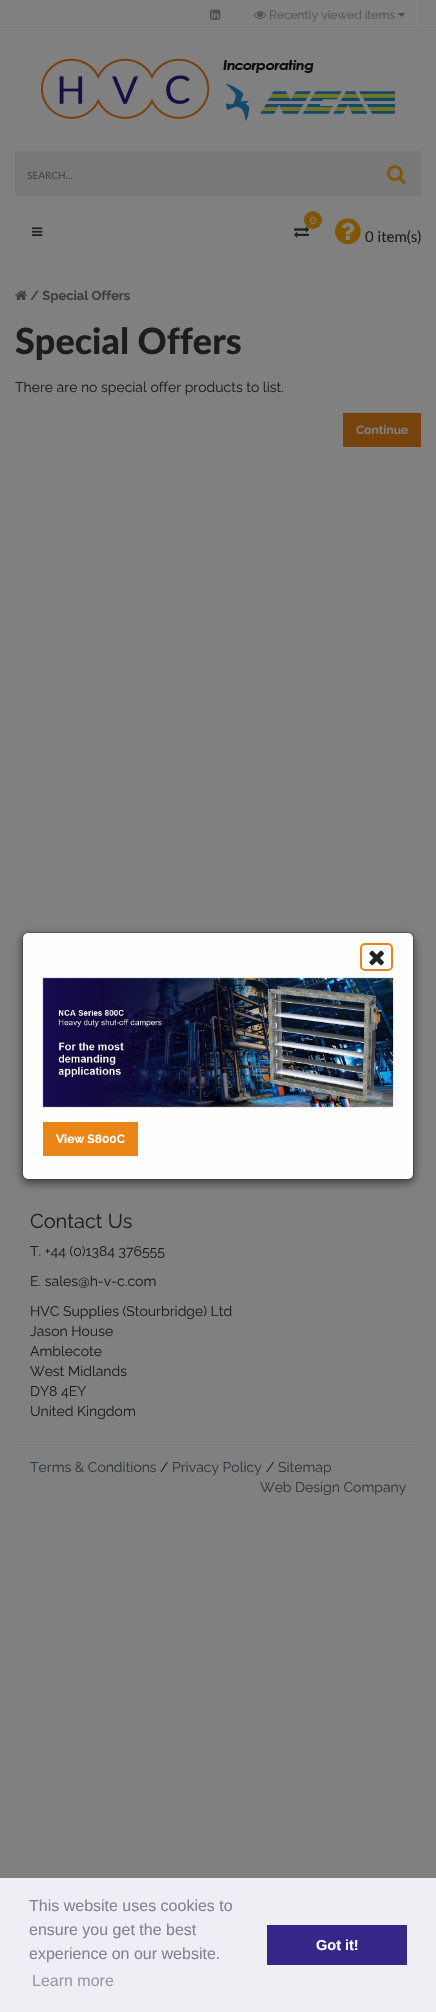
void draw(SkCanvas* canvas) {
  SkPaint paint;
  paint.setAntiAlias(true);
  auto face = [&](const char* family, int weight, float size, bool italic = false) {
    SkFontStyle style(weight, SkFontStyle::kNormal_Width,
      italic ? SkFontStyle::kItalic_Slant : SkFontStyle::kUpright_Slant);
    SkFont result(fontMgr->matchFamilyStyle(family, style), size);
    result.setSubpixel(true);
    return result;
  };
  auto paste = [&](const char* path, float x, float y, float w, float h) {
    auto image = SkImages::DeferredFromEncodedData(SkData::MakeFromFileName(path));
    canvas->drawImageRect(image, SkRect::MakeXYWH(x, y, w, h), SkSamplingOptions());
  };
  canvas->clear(0xff808080);
  paint.setColor(0xff7a7979);
  canvas->drawRect(SkRect::MakeXYWH(0, 30, 436, 1), paint);
  paste("img/1.png", 210, 9, 11, 11);
  canvas->drawRect(SkRect::MakeXYWH(420, 0, 1, 30), paint);
  paste("img/2.png", 254, 11, 12, 8);
  paste("img/3.png", 398, 13, 7, 4);
  paste("img/4.png", 41, 58, 354, 63);
  paint.setColor(0xff787878);
  canvas->drawRect(SkRect::MakeXYWH(15, 151, 406, 45), paint);
  paste("img/5.png", 387, 165, 19, 19);
  paste("img/6.png", 294, 226, 15, 12);
  paint.setColor(0xff805600);
  canvas->drawCircle(313, 220, 9, paint);
  paste("img/7.png", 32, 227, 11, 9);
  paste("img/8.png", 335, 218, 26, 27);
  paste("img/9.png", 15, 290, 12, 10);
  paint.setColor(0xff75430b);
  canvas->drawRect(SkRect::MakeXYWH(343, 413, 78, 34), paint);
  paint.setColor(0xff7a7979);
  canvas->drawRect(SkRect::MakeXYWH(15, 1441, 406, 1), paint);
  paint.setColor(0x80000000);
  paint.setMaskFilter(SkMaskFilter::MakeBlur(kNormal_SkBlurStyle, 4.5f));
  canvas->drawRoundRect(SkRect::MakeXYWH(22, 935, 392, 248), 6, 6, paint);
  paint.setMaskFilter(nullptr);
  paint.setColor(0xfffefefe);
  canvas->drawRoundRect(SkRect::MakeXYWH(23, 933, 390, 246), 5, 5, paint);
  paint.setStroke(true);
  paint.setStrokeWidth(1);
  paint.setColor(0x33000000);
  canvas->drawRoundRect(SkRect::MakeXYWH(22.5f, 932.5f, 391, 247), 5.5f, 5.5f, paint);
  paint.setStrokeWidth(2);
  paint.setColor(0xffea8615);
  canvas->drawRoundRect(SkRect::MakeXYWH(361, 944, 31, 26), 4, 4, paint);
  paste("img/10.png", 369, 950, 15, 16);
  paste("img/11.png", 42, 977, 352, 131);
  paint.setStroke(false);
  {
    const struct { float x, y, w, h; SkColor color; } items[] = {
      {43, 1122, 95, 34, 0xffea8615},
      {0, 1878, 436, 134, 0xffedeff5},
      {267, 1925, 140, 40, 0xff37268a},
    };
    for (auto [x, y, w, h, color] : items) {
      paint.setColor(color);
      canvas->drawRect(SkRect::MakeXYWH(x, y, w, h), paint);
    }
  }
  auto f0 = face("Raleway", 400, 12);
  paint.setColor(0xff515151);
  canvas->drawString("Recently viewed items", 269, 19, f0, paint);
  auto f1 = face("Lato", 400, 10);
  paint.setColor(0xff454545);
  canvas->drawString("SEARCH...", 27, 179, f1, paint);
  paint.setColor(0xff808080);
  canvas->drawString("0", 310, 224, f1, paint);
  auto f2 = face("Lato", 400, 15);
  paint.setColor(0xff1d1d1d);
  canvas->drawString("0 item(s)", 365, 242, f2, paint);
  auto f3 = face("Raleway", 700, 13);
  paint.setColor(0xff3e3e3e);
  canvas->drawString("/ Special Offers", 30, 300, f3, paint);
  auto f4 = face("Lato", 900, 36);
  paint.setColor(0xff1d1d1d);
  canvas->drawString("Special Offers", 15, 354, f4, paint);
  auto f5 = face("Raleway", 400, 14);
  canvas->drawString("There are no special offer products to list.", 15, 392, f5, paint);
  auto f6 = face("Raleway", 700, 12);
  paint.setColor(0xff808080);
  canvas->drawString("Continue", 356, 434, f6, paint);
  auto f7 = face("Raleway", 400, 20);
  paint.setColor(0xff1d1d1d);
  canvas->drawString("Contact Us", 30, 1228, f7, paint);
  {
    const struct { const char* s; float x, y; } items[] = {
      {"T. +44 (0)1384 376555", 30, 1256},
      {"E. sales@h-v-c.com", 30, 1286},
      {"HVC Supplies (Stourbridge) Ltd", 30, 1316},
      {"Jason House", 30, 1336},
      {"Amblecote", 30, 1356},
      {"West Midlands", 30, 1376},
      {"DY8 4EY", 30, 1396},
      {"United Kingdom", 30, 1416},
    };
    for (auto [s, x, y] : items) {
      canvas->drawString(s, x, y, f5, paint);
    }
  }
  paint.setColor(0xff2f373c);
  canvas->drawString("Terms & Conditions", 30, 1472, f5, paint);
  paint.setColor(0xff1d1d1d);
  canvas->drawString("/", 160, 1472, f5, paint);
  paint.setColor(0xff2f373c);
  canvas->drawString("Privacy Policy", 172, 1472, f5, paint);
  paint.setColor(0xff1d1d1d);
  canvas->drawString("/", 266, 1472, f5, paint);
  paint.setColor(0xff2f373c);
  canvas->drawString("Sitemap", 278, 1472, f5, paint);
  canvas->drawString("Web Design Company", 260, 1492, f5, paint);
  paint.setColor(0xffffffff);
  canvas->drawString("View S800C", 56, 1143, f6, paint);
  auto f8 = face("Liberation Sans", 400, 16);
  paint.setColor(0xff838391);
  {
    const struct { const char* s; float x, y; } items[] = {
      {"This website uses cookies to", 29, 1911},
      {"ensure you get the best", 29, 1935},
      {"experience on our website.", 29, 1959},
    };
    for (auto [s, x, y] : items) {
      canvas->drawString(s, x, y, f8, paint);
    }
  }
  paint.setColor(0xff9899a5);
  canvas->drawString("Learn more", 32, 1986, f8, paint);
  auto f9 = face("Liberation Sans", 700, 14.5f);
  paint.setColor(0xffffffff);
  canvas->drawString("Got it!", 316, 1950, f9, paint);
}
